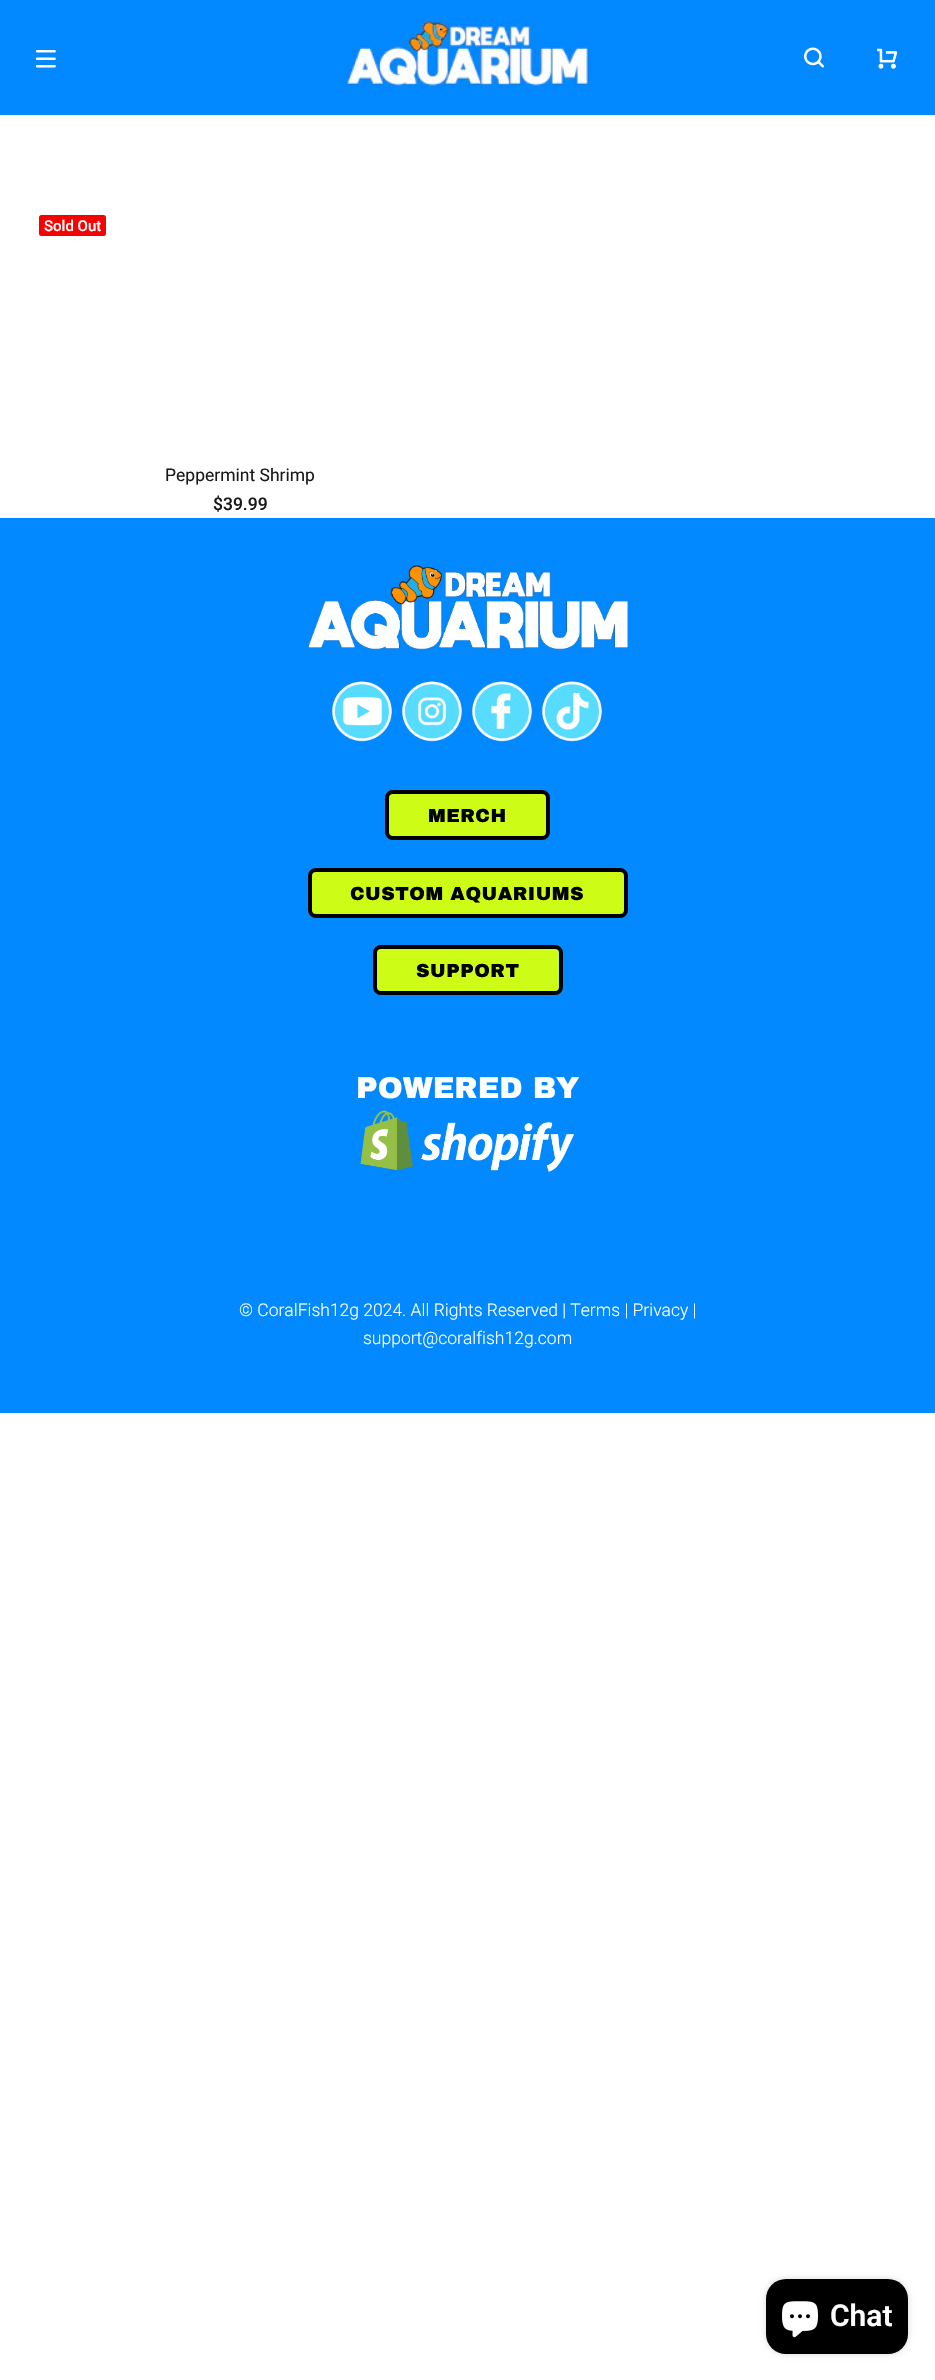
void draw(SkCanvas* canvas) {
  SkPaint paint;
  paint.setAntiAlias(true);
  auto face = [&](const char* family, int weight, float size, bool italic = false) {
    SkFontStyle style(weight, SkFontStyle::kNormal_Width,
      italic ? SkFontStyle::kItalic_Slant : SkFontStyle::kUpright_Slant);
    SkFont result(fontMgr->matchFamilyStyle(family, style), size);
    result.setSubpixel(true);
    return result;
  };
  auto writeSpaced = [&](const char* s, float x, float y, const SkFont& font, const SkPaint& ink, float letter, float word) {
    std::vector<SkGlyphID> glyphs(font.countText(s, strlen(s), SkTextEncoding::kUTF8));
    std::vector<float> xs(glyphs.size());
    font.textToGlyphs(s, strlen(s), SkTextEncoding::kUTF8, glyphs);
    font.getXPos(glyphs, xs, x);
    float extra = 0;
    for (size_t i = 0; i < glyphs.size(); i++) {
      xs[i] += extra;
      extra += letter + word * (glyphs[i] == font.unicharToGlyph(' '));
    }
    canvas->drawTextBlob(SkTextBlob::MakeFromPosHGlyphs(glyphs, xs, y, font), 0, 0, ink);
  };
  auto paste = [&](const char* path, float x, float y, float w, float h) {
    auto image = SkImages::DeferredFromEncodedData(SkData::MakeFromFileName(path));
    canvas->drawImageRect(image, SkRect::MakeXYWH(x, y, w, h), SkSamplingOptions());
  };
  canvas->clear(0xffffffff);
  paint.setColor(0xff0288ff);
  canvas->drawRect(SkRect::MakeXYWH(0, 0, 935, 115), paint);
  paste("img/1.png", 35, 50, 21, 18);
  paste("img/2.png", 344, 20, 248, 69);
  paste("img/3.png", 804, 47, 20, 21);
  paste("img/4.png", 877, 48, 21, 21);
  paint.setColor(0xfff50202);
  canvas->drawRoundRect(SkRect::MakeXYWH(39, 215, 67, 21), 2.5f, 2.5f, paint);
  paint.setColor(0xff0288ff);
  canvas->drawRect(SkRect::MakeXYWH(0, 518, 935, 895), paint);
  paste("img/5.png", 308, 565, 321, 90);
  paste("img/6.png", 331, 681, 61, 61);
  paste("img/7.png", 401, 681, 61, 61);
  paste("img/8.png", 471, 681, 61, 61);
  paste("img/9.png", 541, 681, 61, 61);
  paint.setColor(0xffcdfc16);
  canvas->drawRoundRect(SkRect::MakeXYWH(387, 792, 161, 46), 6, 6, paint);
  paint.setStroke(true);
  paint.setStrokeWidth(4);
  paint.setColor(0xff000000);
  canvas->drawRoundRect(SkRect::MakeXYWH(387, 792, 161, 46), 6, 6, paint);
  paint.setStroke(false);
  paint.setColor(0xffcdfc16);
  canvas->drawRoundRect(SkRect::MakeXYWH(310, 870, 316, 46), 6, 6, paint);
  paint.setStroke(true);
  paint.setColor(0xff000000);
  canvas->drawRoundRect(SkRect::MakeXYWH(310, 870, 316, 46), 6, 6, paint);
  paint.setStroke(false);
  paint.setColor(0xffcdfc16);
  canvas->drawRoundRect(SkRect::MakeXYWH(375, 947, 186, 46), 6, 6, paint);
  paint.setStroke(true);
  paint.setColor(0xff000000);
  canvas->drawRoundRect(SkRect::MakeXYWH(375, 947, 186, 46), 6, 6, paint);
  paste("img/10.png", 360, 1110, 214, 62);
  paint.setStroke(false);
  paint.setColor(0x26000000);
  paint.setMaskFilter(SkMaskFilter::MakeBlur(kNormal_SkBlurStyle, 3));
  canvas->drawRoundRect(SkRect::MakeXYWH(766, 2279, 142, 75), 20, 20, paint);
  paint.setMaskFilter(nullptr);
  paint.setColor(0xff000000);
  canvas->drawRoundRect(SkRect::MakeXYWH(766, 2279, 142, 75), 20, 20, paint);
  paste("img/11.png", 782, 2301, 36, 37);
  auto f0 = face("Roboto", 500, 15);
  paint.setColor(0xffffffff);
  canvas->drawString("Sold Out", 44, 231, f0, paint);
  auto f1 = face("Roboto", 400, 17.5f);
  paint.setColor(0xff191919);
  canvas->drawString("Peppermint Shrimp", 165, 481, f1, paint);
  auto f2 = face("Roboto", 500, 17.5f);
  canvas->drawString("$39.99", 213, 510, f2, paint);
  auto f3 = face("Archivo Black", 900, 18.75f);
  paint.setColor(0xff000000);
  {
    const struct { const char* s; float x, y; } items[] = {
      {"MERCH", 428, 822},
      {"CUSTOM AQUARIUMS", 350, 900},
      {"SUPPORT", 416, 977},
    };
    for (auto [s, x, y] : items) {
      writeSpaced(s, x, y, f3, paint, 0.5f, 0);
    }
  }
  auto f4 = face("Archivo Black", 900, 30);
  paint.setColor(0xffffffff);
  canvas->drawString("POWERED BY", 356, 1098, f4, paint);
  auto f5 = face("Roboto", 300, 17.5f);
  canvas->drawString("© CoralFish12g 2024. All Rights Reserved | Terms | Privacy |", 239, 1316, f5, paint);
  canvas->drawString("support@coralfish12g.com", 363, 1344, f5, paint);
  auto f6 = face("Roboto", 600, 30);
  canvas->drawString("Chat", 830, 2326, f6, paint);
}
